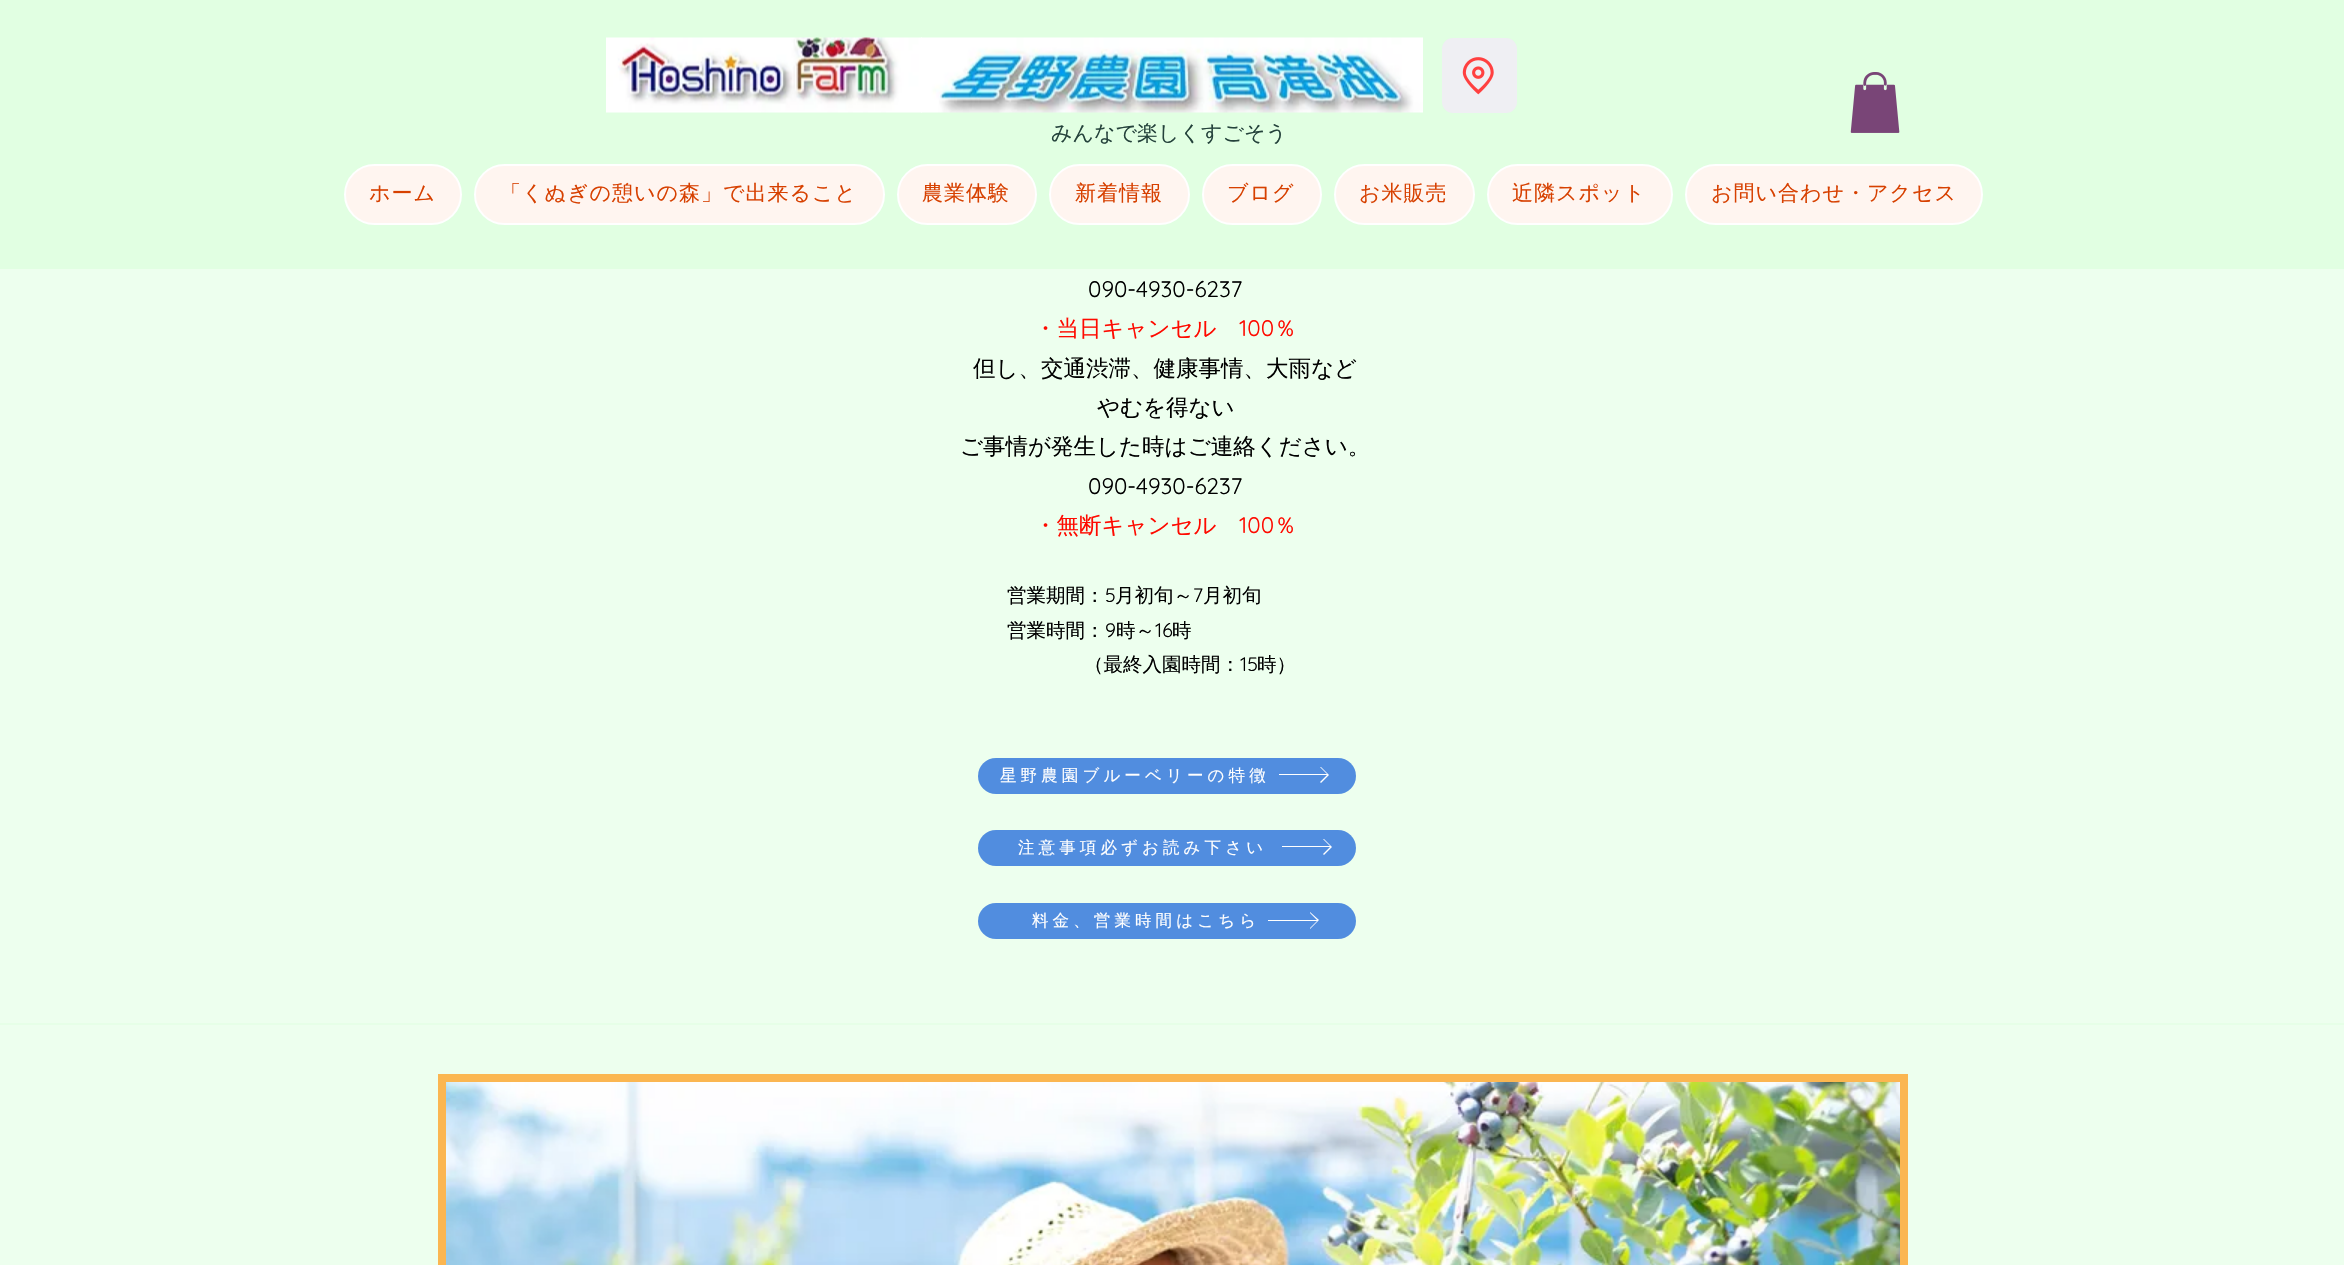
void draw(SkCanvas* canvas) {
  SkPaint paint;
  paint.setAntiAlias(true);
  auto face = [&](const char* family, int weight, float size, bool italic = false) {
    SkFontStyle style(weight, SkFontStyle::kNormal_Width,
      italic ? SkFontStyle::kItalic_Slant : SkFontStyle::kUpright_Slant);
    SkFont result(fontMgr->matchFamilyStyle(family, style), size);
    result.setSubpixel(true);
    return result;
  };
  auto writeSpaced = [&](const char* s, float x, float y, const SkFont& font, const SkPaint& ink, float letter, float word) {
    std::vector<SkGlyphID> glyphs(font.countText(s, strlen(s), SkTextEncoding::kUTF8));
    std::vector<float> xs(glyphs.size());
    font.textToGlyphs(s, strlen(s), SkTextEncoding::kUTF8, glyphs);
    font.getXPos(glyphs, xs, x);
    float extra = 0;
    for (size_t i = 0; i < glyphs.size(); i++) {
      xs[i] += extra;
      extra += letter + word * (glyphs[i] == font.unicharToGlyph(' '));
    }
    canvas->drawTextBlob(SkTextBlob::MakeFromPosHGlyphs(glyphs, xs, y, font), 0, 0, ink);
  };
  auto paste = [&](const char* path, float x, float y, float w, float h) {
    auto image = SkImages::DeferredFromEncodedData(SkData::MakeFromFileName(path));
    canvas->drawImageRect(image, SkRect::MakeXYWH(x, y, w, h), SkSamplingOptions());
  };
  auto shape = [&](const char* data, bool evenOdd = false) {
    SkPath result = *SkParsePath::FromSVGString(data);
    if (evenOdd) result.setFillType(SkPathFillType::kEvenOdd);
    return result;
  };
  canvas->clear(0xffedffee);
  paint.setColor(0xffe1ffe2);
  canvas->drawRect(SkRect::MakeXYWH(0, 0, 2344, 269), paint);
  paste("img/1.png", 606, 37, 316, 76);
  paste("img/2.png", 921, 37, 502, 76);
  paint.setColor(0xffefeff3);
  canvas->drawRoundRect(SkRect::MakeXYWH(1442, 38, 75, 75), 11, 11, paint);
  paste("img/3.png", 1462, 57, 32, 38);
  paste("img/4.png", 1850, 72, 50, 61);
  paint.setColor(0xfffff5f0);
  canvas->drawRoundRect(SkRect::MakeXYWH(345, 165, 116, 59), 29.5f, 29.5f, paint);
  paint.setStroke(true);
  paint.setStrokeWidth(2);
  paint.setColor(0xffffffff);
  canvas->drawRoundRect(SkRect::MakeXYWH(345, 165, 116, 59), 29.5f, 29.5f, paint);
  paint.setStroke(false);
  paint.setColor(0xfffff5f0);
  canvas->drawRoundRect(SkRect::MakeXYWH(475, 165, 409, 59), 29.5f, 29.5f, paint);
  paint.setStroke(true);
  paint.setColor(0xffffffff);
  canvas->drawRoundRect(SkRect::MakeXYWH(475, 165, 409, 59), 29.5f, 29.5f, paint);
  paint.setStroke(false);
  paint.setColor(0xfffff5f0);
  canvas->drawRoundRect(SkRect::MakeXYWH(898, 165, 138, 59), 29.5f, 29.5f, paint);
  paint.setStroke(true);
  paint.setColor(0xffffffff);
  canvas->drawRoundRect(SkRect::MakeXYWH(898, 165, 138, 59), 29.5f, 29.5f, paint);
  paint.setStroke(false);
  paint.setColor(0xfffff5f0);
  canvas->drawRoundRect(SkRect::MakeXYWH(1050, 165, 139, 59), 29.5f, 29.5f, paint);
  paint.setStroke(true);
  paint.setColor(0xffffffff);
  canvas->drawRoundRect(SkRect::MakeXYWH(1050, 165, 139, 59), 29.5f, 29.5f, paint);
  paint.setStroke(false);
  paint.setColor(0xfffff5f0);
  canvas->drawRoundRect(SkRect::MakeXYWH(1203, 165, 118, 59), 29.5f, 29.5f, paint);
  paint.setStroke(true);
  paint.setColor(0xffffffff);
  canvas->drawRoundRect(SkRect::MakeXYWH(1203, 165, 118, 59), 29.5f, 29.5f, paint);
  paint.setStroke(false);
  paint.setColor(0xfffff5f0);
  canvas->drawRoundRect(SkRect::MakeXYWH(1335, 165, 139, 59), 29.5f, 29.5f, paint);
  paint.setStroke(true);
  paint.setColor(0xffffffff);
  canvas->drawRoundRect(SkRect::MakeXYWH(1335, 165, 139, 59), 29.5f, 29.5f, paint);
  paint.setStroke(false);
  paint.setColor(0xfffff5f0);
  canvas->drawRoundRect(SkRect::MakeXYWH(1488, 165, 184, 59), 29.5f, 29.5f, paint);
  paint.setStroke(true);
  paint.setColor(0xffffffff);
  canvas->drawRoundRect(SkRect::MakeXYWH(1488, 165, 184, 59), 29.5f, 29.5f, paint);
  paint.setStroke(false);
  paint.setColor(0xfffff5f0);
  canvas->drawRoundRect(SkRect::MakeXYWH(1686, 165, 296, 59), 29.5f, 29.5f, paint);
  paint.setStroke(true);
  paint.setColor(0xffffffff);
  canvas->drawRoundRect(SkRect::MakeXYWH(1686, 165, 296, 59), 29.5f, 29.5f, paint);
  paint.setStroke(false);
  paint.setColor(0xff518ddf);
  canvas->drawRoundRect(SkRect::MakeXYWH(978, 758, 378, 36), 18, 18, paint);
  paint.setColor(0xffffffff);
  canvas->drawPath(shape("M1321 767H1320L1327 774H1279V775H1327L1320 782L1321 783L1329 775Z"), paint);
  paint.setColor(0xff518ddf);
  canvas->drawRoundRect(SkRect::MakeXYWH(978, 830, 378, 36), 18, 18, paint);
  paint.setColor(0xffffffff);
  canvas->drawPath(shape("M1324 839H1323L1330 846H1282V847H1330L1323 854L1324 855L1332 847Z"), paint);
  paint.setColor(0xff518ddf);
  canvas->drawRoundRect(SkRect::MakeXYWH(978, 903, 378, 36), 18, 18, paint);
  paint.setColor(0xffffffff);
  canvas->drawPath(shape("M1310 912V913L1317 920H1268V921H1317L1310 928V929L1319 920Z"), paint);
  paint.setColor(0xffe6ffe7);
  canvas->drawRect(SkRect::MakeXYWH(0, 1023, 2344, 2), paint);
  paste("img/5.png", 446, 1082, 1454, 183);
  paint.setStroke(true);
  paint.setStrokeWidth(8);
  paint.setColor(0xfffbb651);
  canvas->drawRect(SkRect::MakeXYWH(442, 1078, 1462, 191), paint);
  auto f0 = face("WenQuanYi Zen Hei", 500, 21);
  paint.setStroke(false);
  paint.setColor(0xff24423b);
  canvas->drawString("みんなで楽しくすごそう", 1051, 140, f0, paint);
  paint.setColor(0xffd74000);
  {
    const struct { const char* s; float x, y; } items[] = {
      {"ホーム", 369, 200},
      {"「くぬぎの憩いの森」で出来ること", 500, 200},
      {"農業体験", 922, 200},
      {"新着情報", 1075, 200},
      {"ブログ", 1227, 200},
      {"お米販売", 1359, 200},
      {"近隣スポット", 1512, 200},
      {"お問い合わせ・アクセス", 1711, 200},
    };
    for (auto [s, x, y] : items) {
      writeSpaced(s, x, y, f0, paint, 1, 0);
    }
  }
  auto f1 = face("Quicksand", 400, 22.5f);
  paint.setColor(0xff000000);
  canvas->drawString("090-4930-6237", 1088, 297, f1, paint);
  auto f2 = face("WenQuanYi Zen Hei", 500, 22.5f);
  paint.setColor(0xffff0a00);
  canvas->drawString("・当日キャンセル", 1034, 336, f2, paint);
  canvas->drawString("100", 1239, 336, f1, paint);
  canvas->drawString("％", 1274, 336, f2, paint);
  paint.setColor(0xff000000);
  {
    const struct { const char* s; float x, y; } items[] = {
      {"但し、交通渋滞、健康事情、大雨など", 973, 376},
      {"やむを得ない", 1097, 415},
      {"ご事情が発生した時はご連絡ください。", 960, 454},
    };
    for (auto [s, x, y] : items) {
      canvas->drawString(s, x, y, f2, paint);
    }
  }
  canvas->drawString("090-4930-6237", 1088, 494, f1, paint);
  paint.setColor(0xffff0a00);
  canvas->drawString("・無断キャンセル", 1034, 533, f2, paint);
  canvas->drawString("100", 1239, 533, f1, paint);
  canvas->drawString("％", 1274, 533, f2, paint);
  auto f3 = face("WenQuanYi Zen Hei", 500, 19.5f);
  paint.setColor(0xff000000);
  canvas->drawString("営業期間：", 1007, 602, f3, paint);
  auto f4 = face("Quicksand", 400, 19.5f);
  canvas->drawString("5", 1105, 602, f4, paint);
  canvas->drawString("月初旬～", 1115, 602, f3, paint);
  canvas->drawString("7", 1193, 602, f4, paint);
  canvas->drawString("月初旬", 1203, 602, f3, paint);
  canvas->drawString("営業時間：", 1007, 637, f3, paint);
  canvas->drawString("9", 1105, 637, f4, paint);
  canvas->drawString("時～", 1116, 637, f3, paint);
  canvas->drawString("16", 1155, 637, f4, paint);
  canvas->drawString("時", 1172, 637, f3, paint);
  canvas->drawString("（最終入園時間：", 1084, 671, f3, paint);
  canvas->drawString("15", 1240, 671, f4, paint);
  canvas->drawString("時）", 1257, 671, f3, paint);
  auto f5 = face("WenQuanYi Zen Hei", 500, 16.5f);
  paint.setColor(0xffffffff);
  {
    const struct { const char* s; float x, y; } items[] = {
      {"星野農園ブルーベリーの特徴", 1000, 781},
      {"注意事項必ずお読み下さい", 1018, 853},
      {"料金、営業時間はこちら", 1032, 926},
    };
    for (auto [s, x, y] : items) {
      writeSpaced(s, x, y, f5, paint, 4.1f, 0);
    }
  }
}
